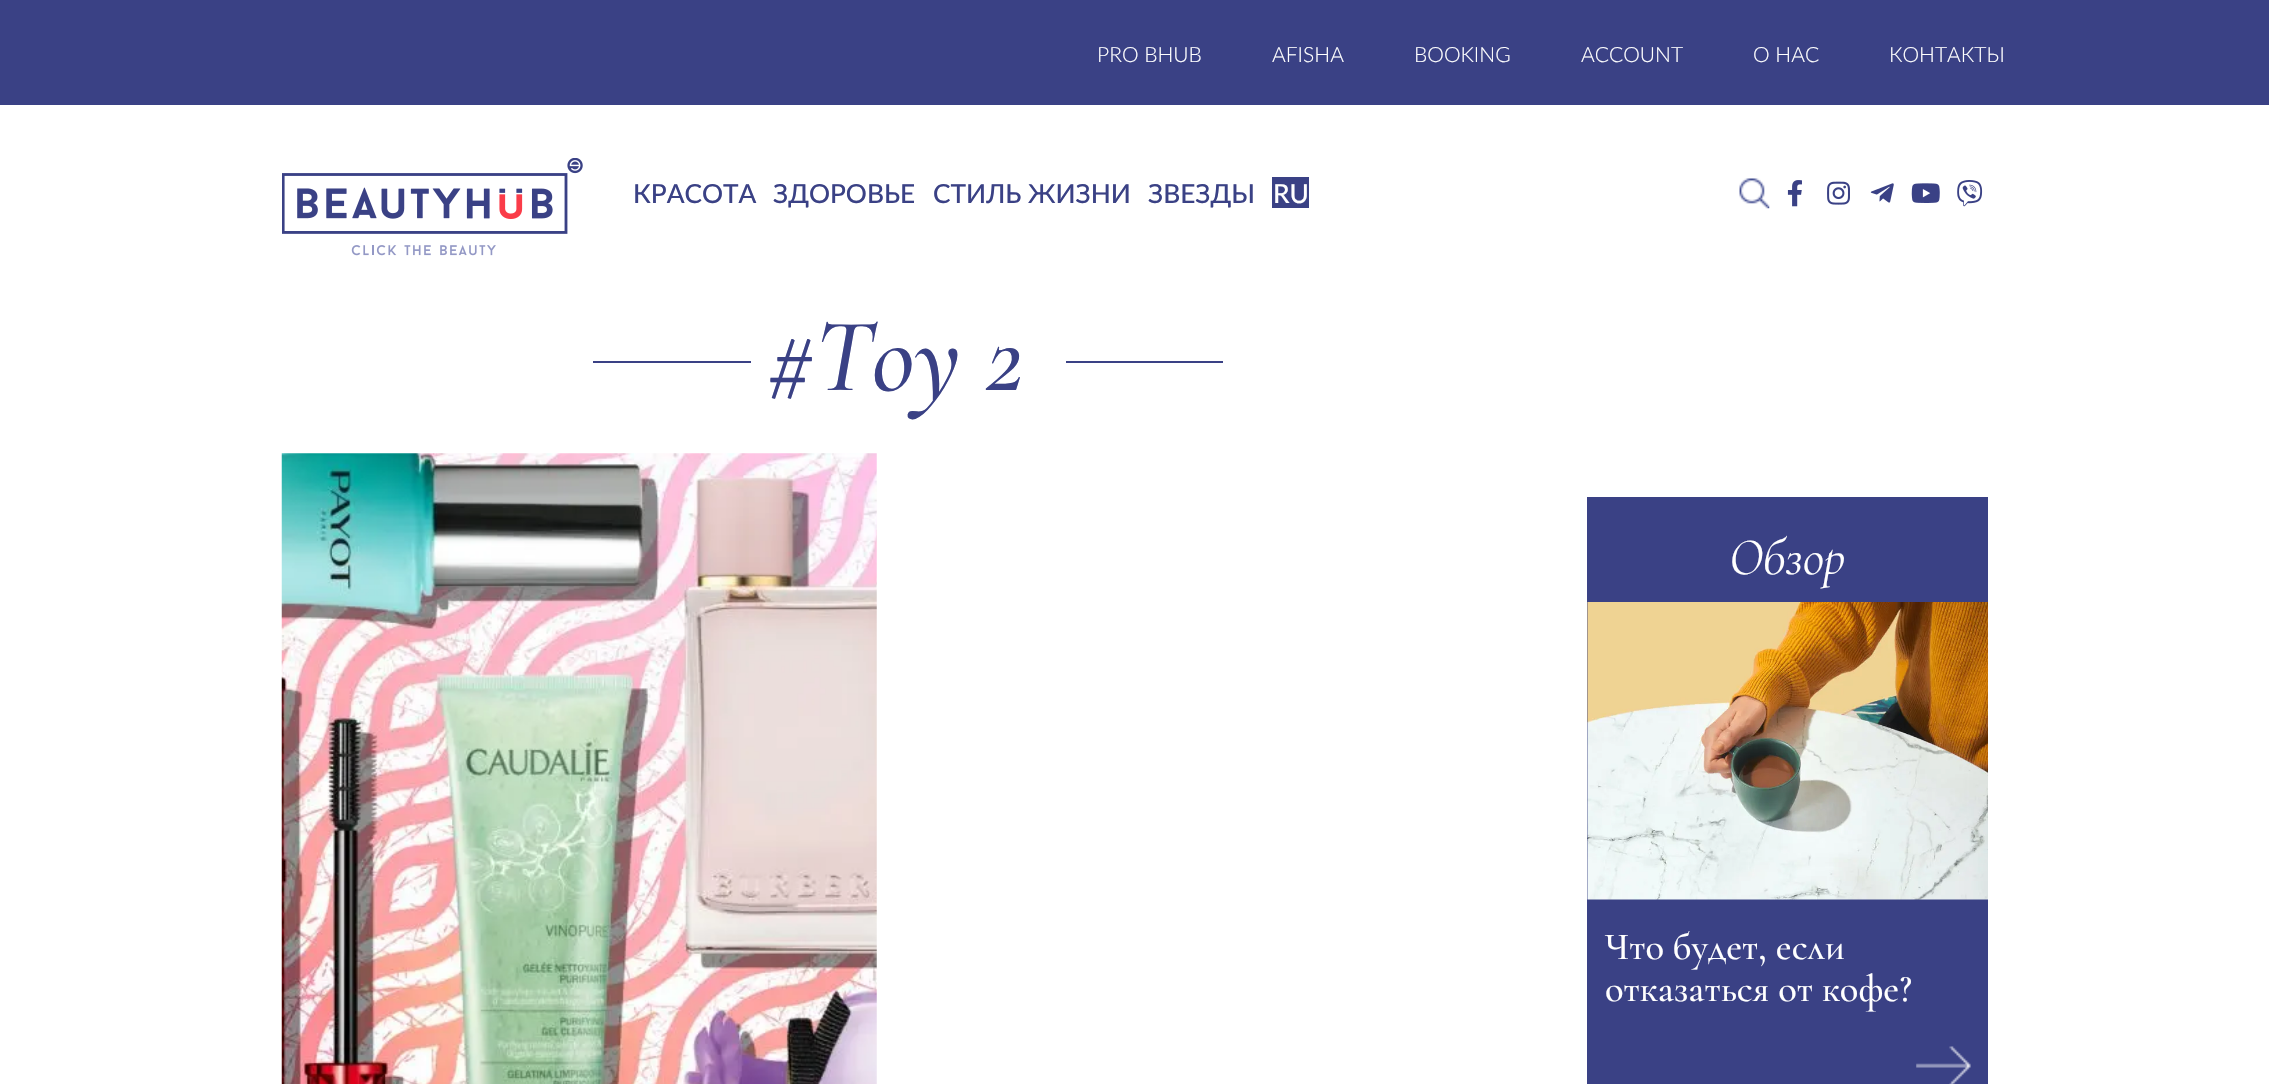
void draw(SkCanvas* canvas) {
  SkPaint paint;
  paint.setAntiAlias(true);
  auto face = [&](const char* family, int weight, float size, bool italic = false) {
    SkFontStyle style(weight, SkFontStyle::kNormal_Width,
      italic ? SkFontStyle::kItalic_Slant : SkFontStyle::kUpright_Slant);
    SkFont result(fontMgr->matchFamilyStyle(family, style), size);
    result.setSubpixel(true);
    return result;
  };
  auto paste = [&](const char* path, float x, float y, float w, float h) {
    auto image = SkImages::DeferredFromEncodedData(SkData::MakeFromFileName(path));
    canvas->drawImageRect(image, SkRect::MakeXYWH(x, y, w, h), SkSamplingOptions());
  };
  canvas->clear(0xffffffff);
  paint.setColor(0xff3a4185);
  canvas->drawRect(SkRect::MakeXYWH(0, 0, 2269, 105), paint);
  paste("img/1.png", 282, 158, 301, 98);
  canvas->drawRect(SkRect::MakeXYWH(1272, 177, 37, 31), paint);
  paste("img/2.png", 1739, 178, 31, 31);
  paste("img/3.png", 1787, 180, 15, 27);
  paste("img/4.png", 1827, 181, 23, 24);
  paste("img/5.png", 1870, 183, 24, 20);
  paste("img/6.png", 1911, 183, 29, 20);
  paste("img/7.png", 1957, 180, 26, 27);
  canvas->drawRect(SkRect::MakeXYWH(593, 361, 158, 2), paint);
  canvas->drawRect(SkRect::MakeXYWH(1066, 361, 157, 2), paint);
  paste("img/8.png", 281, 453, 596, 631);
  canvas->drawRect(SkRect::MakeXYWH(1587, 497, 401, 587), paint);
  paste("img/9.png", 1587, 602, 401, 298);
  paste("img/10.png", 1916, 1046, 55, 38);
  auto f0 = face("Lato", 300, 21);
  paint.setColor(0xffffffff);
  {
    const struct { const char* s; float x, y; } items[] = {
      {"PRO BHUB", 1097, 62},
      {"AFISHA", 1272, 62},
      {"BOOKING", 1414, 62},
      {"ACCOUNT", 1581, 62},
      {"О НАС", 1753, 62},
      {"КОНТАКТЫ", 1889, 62},
    };
    for (auto [s, x, y] : items) {
      canvas->drawString(s, x, y, f0, paint);
    }
  }
  auto f1 = face("Lato", 500, 26.25f);
  paint.setColor(0xff3a4185);
  {
    const struct { const char* s; float x, y; } items[] = {
      {"КРАСОТА", 633, 203},
      {"ЗДОРОВЬЕ", 773, 203},
      {"СТИЛЬ ЖИЗНИ", 933, 203},
      {"ЗВЕЗДЫ", 1148, 203},
    };
    for (auto [s, x, y] : items) {
      canvas->drawString(s, x, y, f1, paint);
    }
  }
  paint.setColor(0xffffffff);
  canvas->drawString("RU", 1273, 203, f1, paint);
  auto f2 = face("Cormorant Garamond", 500, 105, true);
  paint.setColor(0xff3a4185);
  canvas->drawString("#Toy 2", 768, 390, f2, paint);
  auto f3 = face("Cormorant Garamond", 400, 52.5f, true);
  paint.setColor(0xffffffff);
  canvas->drawString("Обзор", 1729, 574, f3, paint);
  auto f4 = face("Cormorant Garamond", 500, 38.5f);
  canvas->drawString("Что будет, если", 1605, 959, f4, paint);
  canvas->drawString("отказаться от кофе?", 1605, 1001, f4, paint);
}
